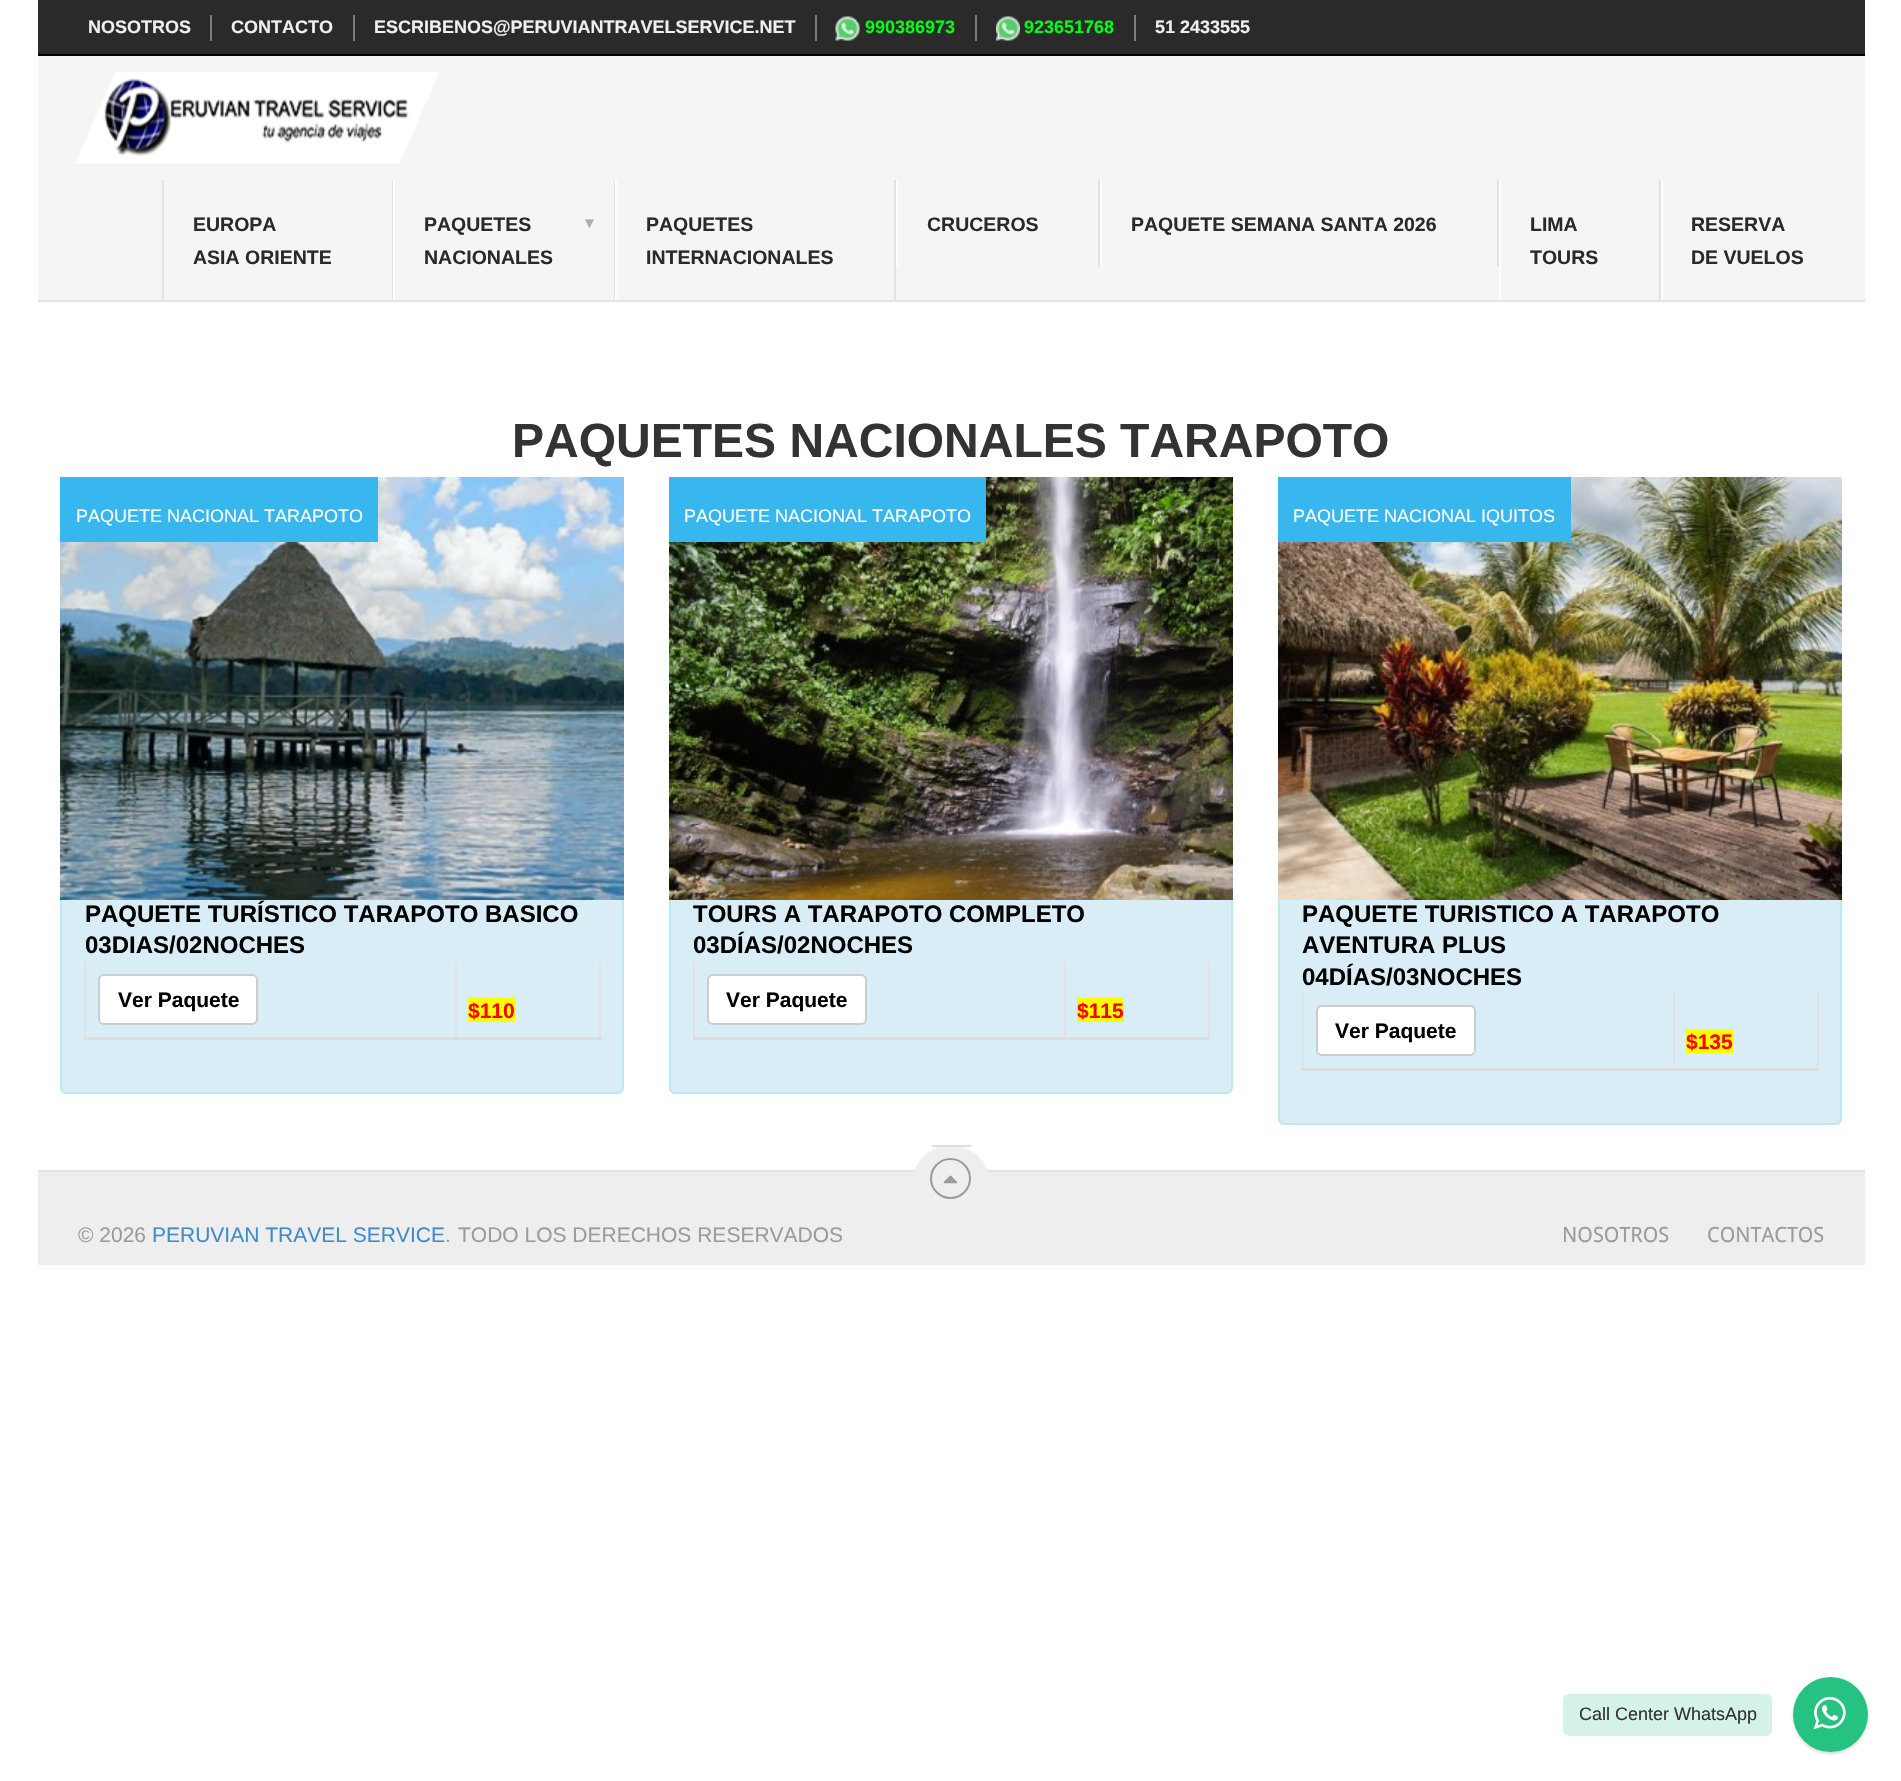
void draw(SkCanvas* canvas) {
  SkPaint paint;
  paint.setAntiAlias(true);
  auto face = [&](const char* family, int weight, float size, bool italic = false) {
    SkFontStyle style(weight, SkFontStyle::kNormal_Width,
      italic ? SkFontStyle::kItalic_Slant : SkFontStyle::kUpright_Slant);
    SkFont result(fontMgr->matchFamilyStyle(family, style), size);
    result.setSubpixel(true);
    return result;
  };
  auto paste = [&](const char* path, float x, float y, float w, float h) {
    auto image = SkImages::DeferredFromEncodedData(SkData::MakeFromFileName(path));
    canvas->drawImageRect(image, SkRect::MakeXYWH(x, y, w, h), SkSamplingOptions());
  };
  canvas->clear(0xffffffff);
  {
    const struct { float x, y, w, h; SkColor color; } items[] = {
      {38, 0, 1827, 54, 0xff2a2a2a},
      {38, 54, 1827, 2, 0xff000000},
      {210, 15, 2, 26, 0xff7d7d7d},
      {353, 15, 2, 26, 0xff7d7d7d},
      {815, 15, 2, 26, 0xff7d7d7d},
      {975, 15, 2, 26, 0xff7d7d7d},
    };
    for (auto [x, y, w, h, color] : items) {
      paint.setColor(color);
      canvas->drawRect(SkRect::MakeXYWH(x, y, w, h), paint);
    }
  }
  paste("img/1.png", 835, 16, 25, 25);
  canvas->drawRect(SkRect::MakeXYWH(1134, 15, 2, 26), paint);
  paste("img/2.png", 996, 16, 24, 25);
  paint.setColor(0xfff5f5f5);
  canvas->drawRect(SkRect::MakeXYWH(38, 56, 1827, 244), paint);
  paste("img/3.png", 75, 72, 364, 92);
  {
    const struct { float x, y, w, h; SkColor color; } items[] = {
      {392, 180, 1, 122, 0xffe2e2e2},
      {162, 180, 2, 122, 0xffe2e2e2},
      {614, 180, 1, 122, 0xffe2e2e2},
      {393, 180, 2, 122, 0xffffffff},
      {894, 180, 2, 122, 0xffe2e2e2},
      {615, 180, 2, 122, 0xffffffff},
      {1098, 180, 2, 87, 0xffe2e2e2},
      {896, 180, 2, 87, 0xffffffff},
      {1497, 180, 2, 87, 0xffe2e2e2},
      {1100, 180, 2, 87, 0xffffffff},
      {1659, 180, 2, 122, 0xffe2e2e2},
      {1499, 180, 2, 122, 0xffffffff},
      {1661, 180, 2, 122, 0xffffffff},
      {38, 300, 1827, 2, 0xffe2e2e2},
    };
    for (auto [x, y, w, h, color] : items) {
      paint.setColor(color);
      canvas->drawRect(SkRect::MakeXYWH(x, y, w, h), paint);
    }
  }
  paint.setColor(0xffd9edf7);
  canvas->drawRoundRect(SkRect::MakeXYWH(61, 478, 562, 615), 5, 5, paint);
  paint.setStroke(true);
  paint.setStrokeWidth(2);
  paint.setColor(0xffbce8f1);
  canvas->drawRoundRect(SkRect::MakeXYWH(61, 478, 562, 615), 5, 5, paint);
  paste("img/4.png", 60, 477, 564, 423);
  paint.setStroke(false);
  paint.setColor(0xff38b7ee);
  canvas->drawRect(SkRect::MakeXYWH(60, 477, 318, 65), paint);
  paint.setColor(0xffe2e2e2);
  canvas->drawRect(SkRect::MakeXYWH(84, 962, 2, 78), paint);
  paint.setColor(0xffffffff);
  canvas->drawRoundRect(SkRect::MakeXYWH(99, 975, 158, 49), 5, 5, paint);
  paint.setStroke(true);
  paint.setColor(0xffcccccc);
  canvas->drawRoundRect(SkRect::MakeXYWH(99, 975, 158, 49), 5, 5, paint);
  paint.setStroke(false);
  {
    const struct { float x, y, w, h; SkColor color; } items[] = {
      {599, 962, 2, 78, 0xffe2e2e2},
      {455, 962, 2, 78, 0xffe2e2e2},
      {84, 1037, 518, 3, 0xffdddddd},
      {468, 998, 47, 24, 0xffffff00},
    };
    for (auto [x, y, w, h, color] : items) {
      paint.setColor(color);
      canvas->drawRect(SkRect::MakeXYWH(x, y, w, h), paint);
    }
  }
  paint.setColor(0xffd9edf7);
  canvas->drawRoundRect(SkRect::MakeXYWH(670, 478, 562, 615), 5, 5, paint);
  paint.setStroke(true);
  paint.setColor(0xffbce8f1);
  canvas->drawRoundRect(SkRect::MakeXYWH(670, 478, 562, 615), 5, 5, paint);
  paste("img/5.png", 669, 477, 564, 423);
  paint.setStroke(false);
  paint.setColor(0xff38b7ee);
  canvas->drawRect(SkRect::MakeXYWH(669, 477, 317, 65), paint);
  paint.setColor(0xffe2e2e2);
  canvas->drawRect(SkRect::MakeXYWH(693, 962, 2, 78), paint);
  paint.setColor(0xffffffff);
  canvas->drawRoundRect(SkRect::MakeXYWH(708, 975, 158, 49), 5, 5, paint);
  paint.setStroke(true);
  paint.setColor(0xffcccccc);
  canvas->drawRoundRect(SkRect::MakeXYWH(708, 975, 158, 49), 5, 5, paint);
  paint.setStroke(false);
  {
    const struct { float x, y, w, h; SkColor color; } items[] = {
      {1208, 962, 2, 78, 0xffe2e2e2},
      {1064, 962, 2, 78, 0xffe2e2e2},
      {693, 1037, 516, 3, 0xffdddddd},
      {1077, 998, 47, 24, 0xffffff00},
    };
    for (auto [x, y, w, h, color] : items) {
      paint.setColor(color);
      canvas->drawRect(SkRect::MakeXYWH(x, y, w, h), paint);
    }
  }
  paint.setColor(0xffd9edf7);
  canvas->drawRoundRect(SkRect::MakeXYWH(1279, 478, 562, 646), 5, 5, paint);
  paint.setStroke(true);
  paint.setColor(0xffbce8f1);
  canvas->drawRoundRect(SkRect::MakeXYWH(1279, 478, 562, 646), 5, 5, paint);
  paste("img/6.png", 1278, 477, 564, 423);
  paint.setStroke(false);
  paint.setColor(0xff38b7ee);
  canvas->drawRect(SkRect::MakeXYWH(1278, 477, 293, 65), paint);
  paint.setColor(0xffe2e2e2);
  canvas->drawRect(SkRect::MakeXYWH(1302, 993, 2, 78), paint);
  paint.setColor(0xffffffff);
  canvas->drawRoundRect(SkRect::MakeXYWH(1317, 1006, 158, 49), 5, 5, paint);
  paint.setStroke(true);
  paint.setColor(0xffcccccc);
  canvas->drawRoundRect(SkRect::MakeXYWH(1317, 1006, 158, 49), 5, 5, paint);
  paint.setStroke(false);
  {
    const struct { float x, y, w, h; SkColor color; } items[] = {
      {1817, 993, 2, 78, 0xffe2e2e2},
      {1673, 993, 2, 78, 0xffe2e2e2},
      {1301, 1068, 517, 3, 0xffdddddd},
      {1686, 1029, 47, 24, 0xffffff00},
      {38, 1172, 1827, 93, 0xffeeeeee},
      {38, 1170, 1827, 2, 0xffe2e2e2},
    };
    for (auto [x, y, w, h, color] : items) {
      paint.setColor(color);
      canvas->drawRect(SkRect::MakeXYWH(x, y, w, h), paint);
    }
  }
  paint.setColor(0xffeeeeee);
  canvas->drawCircle(951, 1184, 39, paint);
  paint.setColor(0xffdddddd);
  canvas->drawRect(SkRect::MakeXYWH(932, 1145, 39, 2), paint);
  paint.setStroke(true);
  paint.setColor(0xff9b9b9b);
  canvas->drawCircle(950.5f, 1178.5f, 19.5f, paint);
  paste("img/7.png", 943, 1175, 15, 9);
  paint.setStroke(false);
  paint.setColor(0xffd4f3e6);
  canvas->drawRoundRect(SkRect::MakeXYWH(1563, 1694, 209, 42), 6, 6, paint);
  paint.setColor(0x26000000);
  paint.setMaskFilter(SkMaskFilter::MakeBlur(kNormal_SkBlurStyle, 1.5f));
  canvas->drawRoundRect(SkRect::MakeXYWH(1793, 1679, 75, 75), 37.5f, 37.5f, paint);
  paint.setMaskFilter(nullptr);
  paint.setColor(0xff26c281);
  canvas->drawCircle(1830.5f, 1714.5f, 37.5f, paint);
  paste("img/8.png", 1813, 1696, 33, 34);
  auto f0 = face("Liberation Sans", 700, 18);
  paint.setColor(0xffefefef);
  {
    const struct { const char* s; float x, y; } items[] = {
      {"NOSOTROS", 88, 33},
      {"CONTACTO", 231, 33},
      {"ESCRIBENOS@PERUVIANTRAVELSERVICE.NET", 374, 33},
    };
    for (auto [s, x, y] : items) {
      canvas->drawString(s, x, y, f0, paint);
    }
  }
  paint.setColor(0xff00ff16);
  canvas->drawString("990386973", 865, 33, f0, paint);
  canvas->drawString("923651768", 1024, 33, f0, paint);
  paint.setColor(0xffefefef);
  canvas->drawString("51 2433555", 1155, 33, f0, paint);
  auto f1 = face("Liberation Sans", 700, 19.5f);
  paint.setColor(0xff2a2a2a);
  {
    const struct { const char* s; float x, y; } items[] = {
      {"EUROPA", 193, 231},
      {"ASIA ORIENTE", 193, 264},
      {"PAQUETES", 424, 231},
    };
    for (auto [s, x, y] : items) {
      canvas->drawString(s, x, y, f1, paint);
    }
  }
  auto f2 = face("Liberation Sans", 700, 15);
  paint.setColor(0xffadadad);
  canvas->drawString("▼", 582, 228, f2, paint);
  paint.setColor(0xff2a2a2a);
  {
    const struct { const char* s; float x, y; } items[] = {
      {"NACIONALES", 424, 264},
      {"PAQUETES", 646, 231},
      {"INTERNACIONALES", 646, 264},
      {"CRUCEROS", 927, 231},
      {"PAQUETE SEMANA SANTA 2026", 1131, 231},
      {"LIMA", 1530, 231},
      {"TOURS", 1530, 264},
      {"RESERVA", 1691, 231},
      {"DE VUELOS", 1691, 264},
    };
    for (auto [s, x, y] : items) {
      canvas->drawString(s, x, y, f1, paint);
    }
  }
  auto f3 = face("Liberation Sans", 700, 48);
  paint.setColor(0xff333333);
  canvas->drawString("PAQUETES NACIONALES TARAPOTO", 512, 457, f3, paint);
  auto f4 = face("Liberation Sans", 400, 18);
  paint.setColor(0xffffffff);
  canvas->drawString("PAQUETE NACIONAL TARAPOTO", 76, 522, f4, paint);
  auto f5 = face("Liberation Sans", 700, 24);
  paint.setColor(0xff000000);
  canvas->drawString("PAQUETE TURÍSTICO TARAPOTO BASICO", 85, 922, f5, paint);
  canvas->drawString("03DIAS/02NOCHES", 85, 953, f5, paint);
  auto f6 = face("Liberation Sans", 700, 21);
  canvas->drawString("Ver Paquete", 118, 1007, f6, paint);
  paint.setColor(0xffff0000);
  canvas->drawString("$110", 468, 1018, f6, paint);
  paint.setColor(0xffffffff);
  canvas->drawString("PAQUETE NACIONAL TARAPOTO", 684, 522, f4, paint);
  paint.setColor(0xff000000);
  canvas->drawString("TOURS A TARAPOTO COMPLETO", 693, 922, f5, paint);
  canvas->drawString("03DÍAS/02NOCHES", 693, 953, f5, paint);
  canvas->drawString("Ver Paquete", 726, 1007, f6, paint);
  paint.setColor(0xffff0000);
  canvas->drawString("$115", 1077, 1018, f6, paint);
  paint.setColor(0xffffffff);
  canvas->drawString("PAQUETE NACIONAL IQUITOS", 1293, 522, f4, paint);
  paint.setColor(0xff000000);
  {
    const struct { const char* s; float x, y; } items[] = {
      {"PAQUETE TURISTICO A TARAPOTO", 1302, 922},
      {"AVENTURA PLUS", 1302, 953},
      {"04DÍAS/03NOCHES", 1302, 985},
    };
    for (auto [s, x, y] : items) {
      canvas->drawString(s, x, y, f5, paint);
    }
  }
  canvas->drawString("Ver Paquete", 1335, 1038, f6, paint);
  paint.setColor(0xffff0000);
  canvas->drawString("$135", 1686, 1049, f6, paint);
  auto f7 = face("Liberation Sans", 400, 21);
  paint.setColor(0xff9b9b9b);
  canvas->drawString("© 2026", 78, 1242, f7, paint);
  paint.setColor(0xff428bca);
  canvas->drawString("PERUVIAN TRAVEL SERVICE", 152, 1242, f7, paint);
  paint.setColor(0xff9b9b9b);
  canvas->drawString(".", 445, 1242, f7, paint);
  canvas->drawString("TODO LOS DERECHOS RESERVADOS", 458, 1242, f7, paint);
  auto f8 = face("Droid Sans", 400, 21);
  canvas->drawString("NOSOTROS", 1562, 1242, f8, paint);
  canvas->drawString("CONTACTOS", 1707, 1242, f8, paint);
  paint.setColor(0xff333333);
  canvas->drawString("Call Center WhatsApp", 1579, 1720, f4, paint);
}
